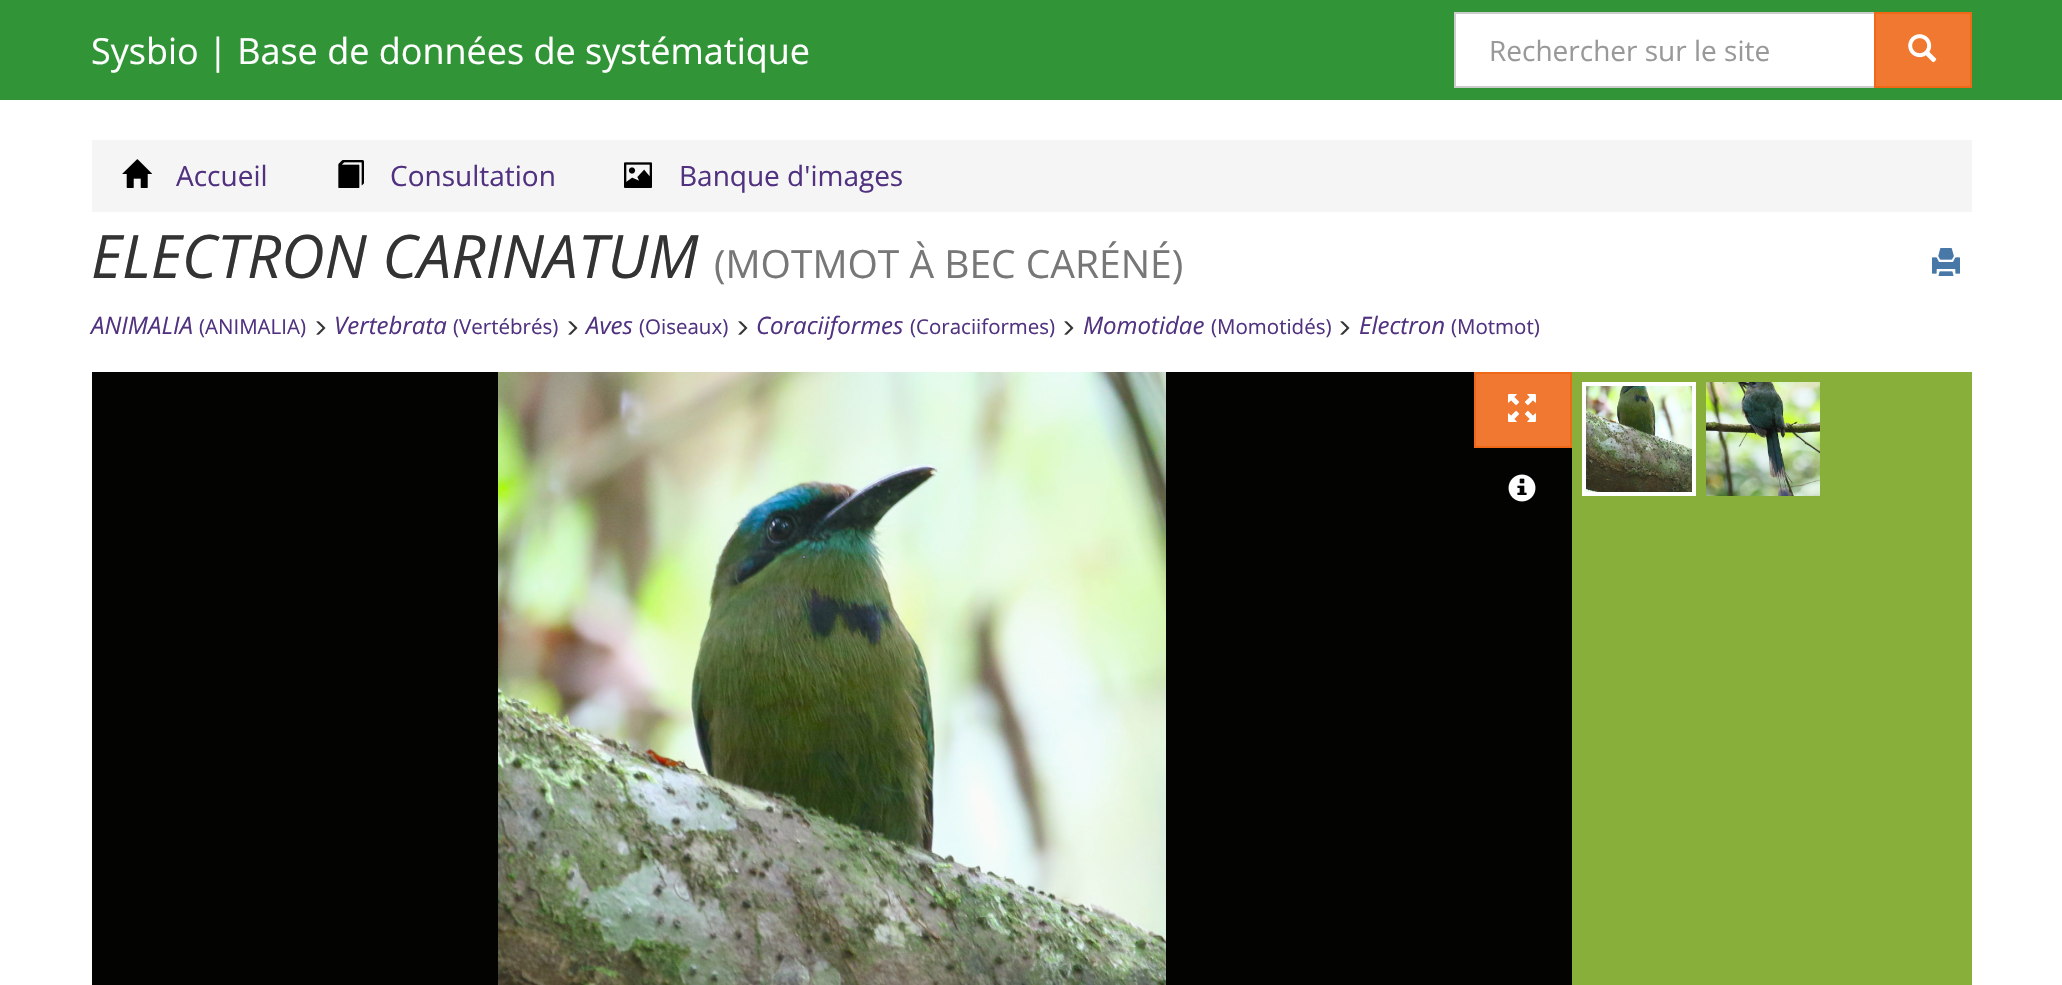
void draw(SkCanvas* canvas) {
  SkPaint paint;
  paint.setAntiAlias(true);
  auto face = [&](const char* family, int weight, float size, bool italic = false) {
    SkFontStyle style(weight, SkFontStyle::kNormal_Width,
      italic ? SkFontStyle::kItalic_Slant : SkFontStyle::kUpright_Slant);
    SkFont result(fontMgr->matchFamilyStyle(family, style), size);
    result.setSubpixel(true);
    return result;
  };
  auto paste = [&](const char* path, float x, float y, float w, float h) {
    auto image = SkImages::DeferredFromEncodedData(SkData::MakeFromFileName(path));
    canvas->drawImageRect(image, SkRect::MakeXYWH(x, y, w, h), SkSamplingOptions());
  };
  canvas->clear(0xffffffff);
  paint.setColor(0xff319437);
  canvas->drawRect(SkRect::MakeXYWH(0, 0, 2062, 100), paint);
  paint.setColor(0xffffffff);
  canvas->drawRect(SkRect::MakeXYWH(1455, 13, 420, 74), paint);
  paint.setStroke(true);
  paint.setStrokeWidth(2);
  paint.setColor(0xffcccccc);
  canvas->drawRect(SkRect::MakeXYWH(1455, 13, 420, 74), paint);
  paint.setStroke(false);
  paint.setColor(0xfff07830);
  canvas->drawRect(SkRect::MakeXYWH(1875, 13, 96, 74), paint);
  paint.setStroke(true);
  paint.setColor(0xffee6818);
  canvas->drawRect(SkRect::MakeXYWH(1875, 13, 96, 74), paint);
  paste("img/1.png", 1908, 34, 29, 29);
  paint.setStroke(false);
  paint.setColor(0xfff5f5f5);
  canvas->drawRect(SkRect::MakeXYWH(92, 140, 1880, 72), paint);
  paste("img/2.png", 122, 159, 30, 29);
  paste("img/3.png", 338, 160, 26, 28);
  paste("img/4.png", 624, 162, 28, 26);
  paste("img/5.png", 1932, 248, 28, 28);
  paste("img/6.png", 316, 321, 10, 14);
  paste("img/6.png", 568, 321, 10, 14);
  paste("img/6.png", 738, 321, 10, 14);
  paste("img/6.png", 1064, 321, 10, 14);
  paste("img/6.png", 1340, 321, 10, 14);
  paint.setColor(0xff87af3a);
  canvas->drawRect(SkRect::MakeXYWH(1572, 372, 400, 613), paint);
  paint.setColor(0xff030301);
  canvas->drawRect(SkRect::MakeXYWH(92, 372, 1480, 613), paint);
  paste("img/7.png", 498, 372, 668, 613);
  paint.setColor(0xfff07830);
  canvas->drawRect(SkRect::MakeXYWH(1475, 373, 96, 74), paint);
  paint.setStroke(true);
  paint.setColor(0xffee6818);
  canvas->drawRect(SkRect::MakeXYWH(1475, 373, 96, 74), paint);
  paste("img/8.png", 1508, 394, 28, 28);
  paste("img/9.png", 1508, 474, 28, 28);
  paint.setStrokeWidth(4);
  paint.setColor(0xffffffff);
  canvas->drawRect(SkRect::MakeXYWH(1584, 384, 110, 110), paint);
  paste("img/10.png", 1586, 386, 106, 106);
  paste("img/11.png", 1706, 382, 114, 114);
  auto f0 = face("Open Sans", 400, 36);
  paint.setStroke(false);
  canvas->drawString("Sysbio | Base de données de systématique", 91, 64, f0, paint);
  auto f1 = face("Open Sans", 400, 28);
  paint.setColor(0xff999999);
  canvas->drawString("Rechercher sur le site", 1489, 61, f1, paint);
  paint.setColor(0xff513280);
  {
    const struct { const char* s; float x, y; } items[] = {
      {"Accueil", 176, 186},
      {"Consultation", 390, 186},
      {"Banque d'images", 679, 186},
    };
    for (auto [s, x, y] : items) {
      canvas->drawString(s, x, y, f1, paint);
    }
  }
  auto f2 = face("Open Sans", 400, 60, true);
  paint.setColor(0xff333333);
  canvas->drawString("ELECTRON CARINATUM", 91, 278, f2, paint);
  auto f3 = face("Open Sans", 400, 39);
  paint.setColor(0xff777777);
  canvas->drawString("(MOTMOT À BEC CARÉNÉ)", 714, 278, f3, paint);
  auto f4 = face("Open Sans", 400, 24, true);
  paint.setColor(0xff513280);
  canvas->drawString("ANIMALIA", 91, 334, f4, paint);
  auto f5 = face("Open Sans", 400, 20.5f);
  canvas->drawString("(ANIMALIA)", 199, 334, f5, paint);
  canvas->drawString("Vertebrata", 334, 334, f4, paint);
  canvas->drawString("(Vertébrés)", 453, 334, f5, paint);
  canvas->drawString("Aves", 586, 334, f4, paint);
  canvas->drawString("(Oiseaux)", 639, 334, f5, paint);
  canvas->drawString("Coraciiformes", 756, 334, f4, paint);
  canvas->drawString("(Coraciiformes)", 910, 334, f5, paint);
  canvas->drawString("Momotidae", 1083, 334, f4, paint);
  canvas->drawString("(Momotidés)", 1211, 334, f5, paint);
  canvas->drawString("Electron", 1359, 334, f4, paint);
  canvas->drawString("(Motmot)", 1451, 334, f5, paint);
}
